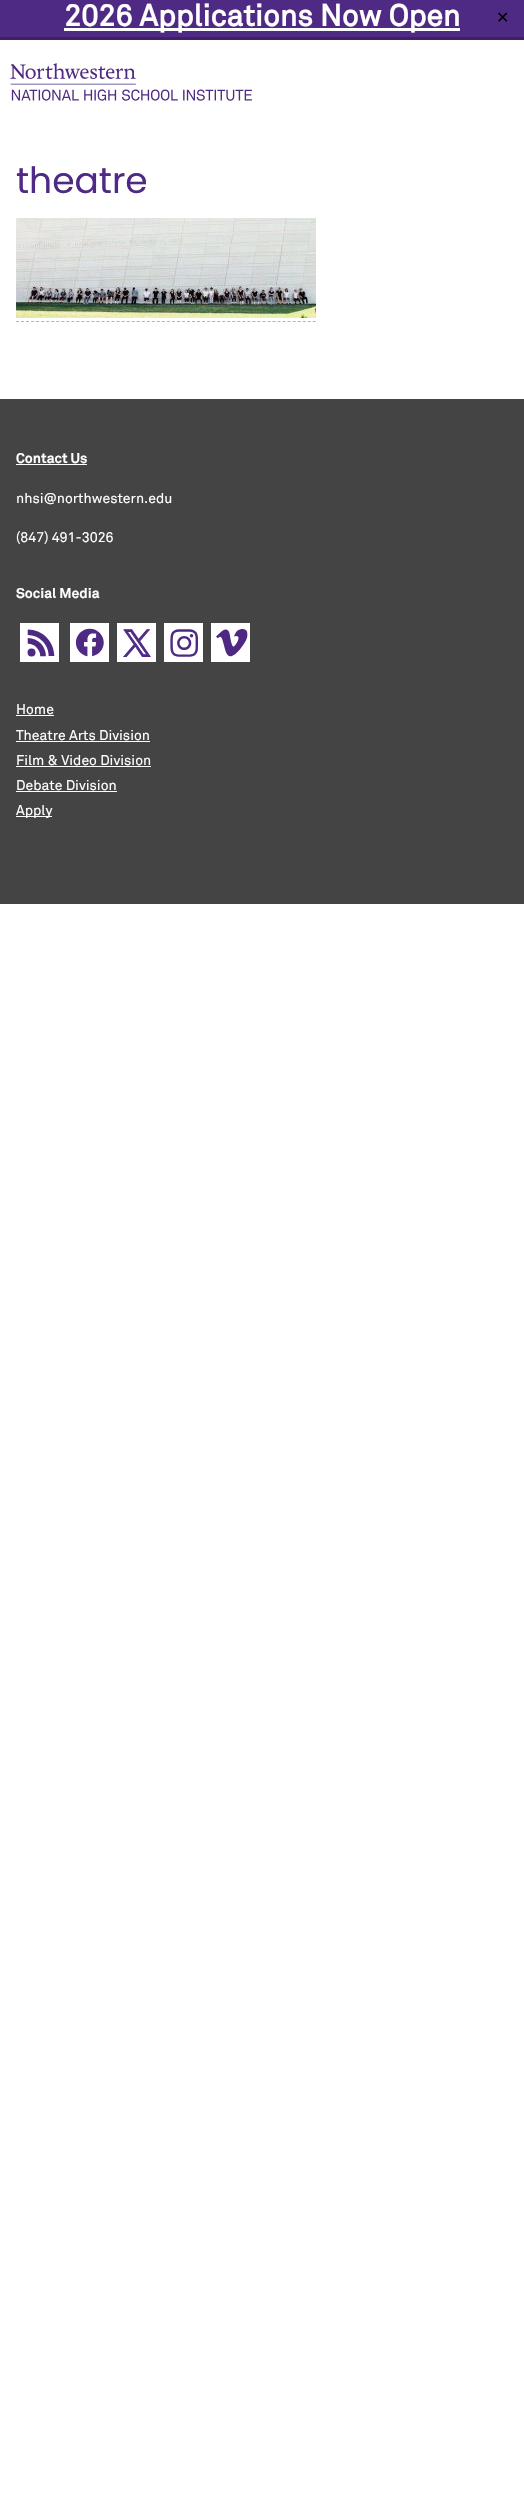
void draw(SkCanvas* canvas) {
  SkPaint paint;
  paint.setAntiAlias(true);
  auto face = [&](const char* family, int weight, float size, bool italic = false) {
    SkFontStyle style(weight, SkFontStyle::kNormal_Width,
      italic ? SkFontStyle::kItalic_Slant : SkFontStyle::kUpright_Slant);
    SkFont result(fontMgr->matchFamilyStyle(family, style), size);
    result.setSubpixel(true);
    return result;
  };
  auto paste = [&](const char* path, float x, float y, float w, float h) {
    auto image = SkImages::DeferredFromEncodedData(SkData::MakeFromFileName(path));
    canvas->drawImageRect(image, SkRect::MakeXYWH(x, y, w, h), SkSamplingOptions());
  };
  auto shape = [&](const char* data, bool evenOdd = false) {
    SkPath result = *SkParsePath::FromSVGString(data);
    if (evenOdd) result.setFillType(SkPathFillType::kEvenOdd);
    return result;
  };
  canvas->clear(0xffffffff);
  {
    const struct { float x, y, w, h; SkColor color; } items[] = {
      {0, 0, 524, 37, 0xff4e2a84},
      {64, 28, 396, 3, 0xffffffff},
      {0, 37, 524, 3, 0xff401f68},
    };
    for (auto [x, y, w, h, color] : items) {
      paint.setColor(color);
      canvas->drawRect(SkRect::MakeXYWH(x, y, w, h), paint);
    }
  }
  paste("img/1.png", 10, 63, 242, 38);
  paint.setStroke(true);
  paint.setStrokeWidth(1);
  paint.setColor(0xffb6acd1);
  paint.setPathEffect(SkDashPathEffect::Make({{3, 2.03f}}, 0));
  canvas->drawPath(shape("M16 321.5H316"), paint);
  paint.setPathEffect(nullptr);
  paste("img/2.png", 16, 218, 300, 100);
  paint.setStroke(false);
  {
    const struct { float x, y, w, h; SkColor color; } items[] = {
      {0, 399, 524, 505, 0xff444444},
      {16, 464, 71, 1, 0xffffffff},
      {20, 623, 39, 39, 0xffffffff},
    };
    for (auto [x, y, w, h, color] : items) {
      paint.setColor(color);
      canvas->drawRect(SkRect::MakeXYWH(x, y, w, h), paint);
    }
  }
  paste("img/3.png", 27, 629, 28, 28);
  canvas->drawRect(SkRect::MakeXYWH(70, 623, 39, 39), paint);
  paste("img/4.png", 75, 628, 29, 29);
  canvas->drawRect(SkRect::MakeXYWH(117, 623, 39, 39), paint);
  paste("img/5.png", 123, 629, 28, 28);
  canvas->drawRect(SkRect::MakeXYWH(164, 623, 39, 39), paint);
  paste("img/6.png", 170, 629, 28, 28);
  canvas->drawRect(SkRect::MakeXYWH(211, 623, 39, 39), paint);
  paste("img/7.png", 216, 629, 32, 28);
  {
    const struct { float x, y, w, h; SkColor color; } items[] = {
      {16, 715, 38, 1, 0xffffffff},
      {16, 741, 134, 1, 0xffffffff},
      {16, 766, 135, 1, 0xffffffff},
      {16, 791, 101, 1, 0xffffffff},
      {16, 816, 36, 1, 0xffffffff},
    };
    for (auto [x, y, w, h, color] : items) {
      paint.setColor(color);
      canvas->drawRect(SkRect::MakeXYWH(x, y, w, h), paint);
    }
  }
  auto f0 = face("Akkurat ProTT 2", 700, 30);
  canvas->drawString("2026 Applications Now Open", 64, 26, f0, paint);
  auto f1 = face("DejaVu Sans", 400, 16);
  paint.setColor(0xff000000);
  canvas->drawString("✕", 496, 23, f1, paint);
  auto f2 = face("Poppins", 400, 36);
  paint.setColor(0xff4e2a84);
  canvas->drawString("theatre", 16, 193, f2, paint);
  auto f3 = face("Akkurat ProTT", 700, 14);
  paint.setColor(0xffffffff);
  canvas->drawString("Contact Us", 16, 463, f3, paint);
  auto f4 = face("Akkurat ProTT", 400, 14);
  canvas->drawString("nhsi@northwestern.edu", 16, 503, f4, paint);
  canvas->drawString("(847) 491-3026", 16, 542, f4, paint);
  canvas->drawString("Social Media", 16, 598, f3, paint);
  {
    const struct { const char* s; float x, y; } items[] = {
      {"Home", 16, 714},
      {"Theatre Arts Division", 16, 740},
      {"Film & Video Division", 16, 765},
      {"Debate Division", 16, 790},
      {"Apply", 16, 815},
    };
    for (auto [s, x, y] : items) {
      canvas->drawString(s, x, y, f4, paint);
    }
  }
}
